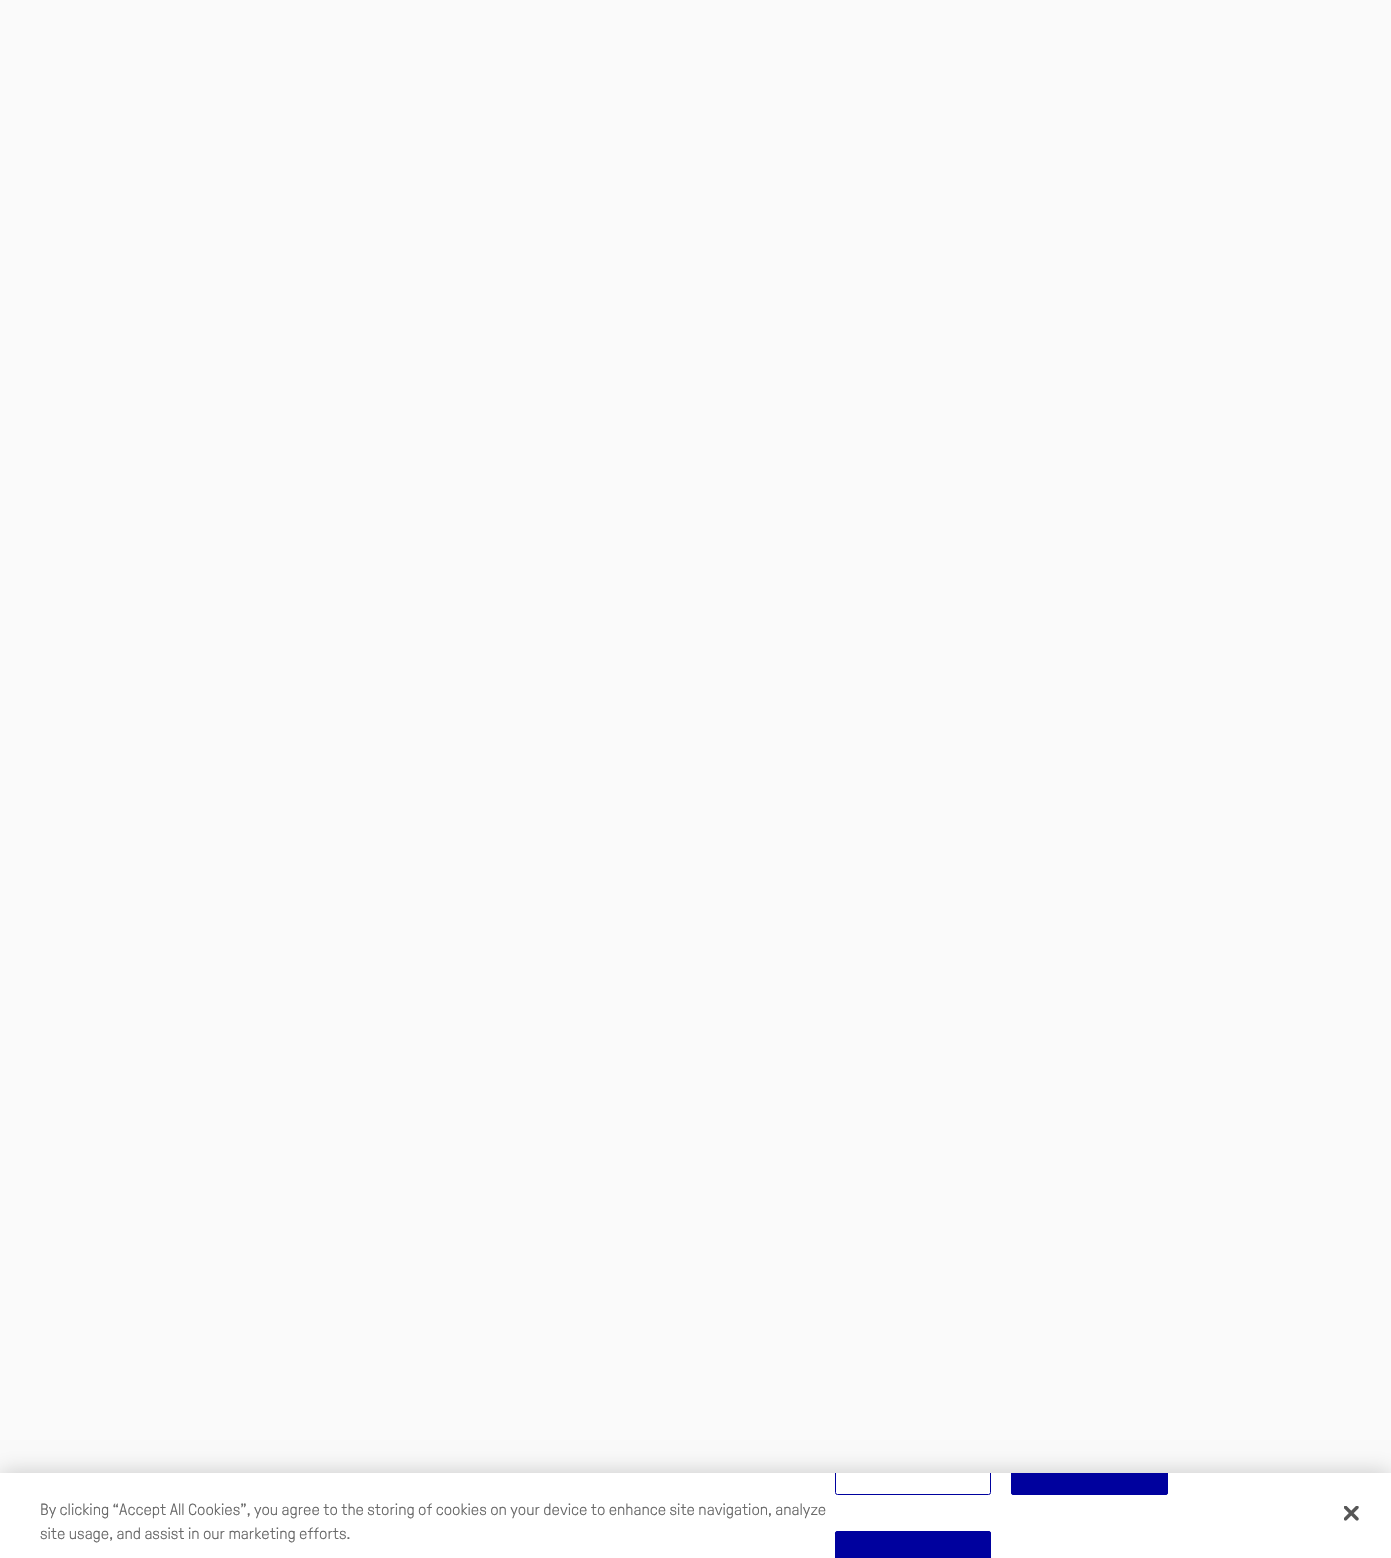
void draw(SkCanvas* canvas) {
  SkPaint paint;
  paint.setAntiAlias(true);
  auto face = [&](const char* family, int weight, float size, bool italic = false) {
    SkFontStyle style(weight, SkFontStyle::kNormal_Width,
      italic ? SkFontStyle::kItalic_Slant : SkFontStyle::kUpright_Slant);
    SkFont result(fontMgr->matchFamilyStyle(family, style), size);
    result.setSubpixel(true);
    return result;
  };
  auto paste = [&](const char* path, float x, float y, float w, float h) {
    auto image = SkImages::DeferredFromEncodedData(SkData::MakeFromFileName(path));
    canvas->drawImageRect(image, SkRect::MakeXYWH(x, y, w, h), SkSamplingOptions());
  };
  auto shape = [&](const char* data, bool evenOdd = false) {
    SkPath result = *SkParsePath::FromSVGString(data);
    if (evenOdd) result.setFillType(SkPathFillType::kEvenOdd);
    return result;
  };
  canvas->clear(0xfffafafa);
  paint.setColor(0x33000000);
  paint.setMaskFilter(SkMaskFilter::MakeBlur(kNormal_SkBlurStyle, 11));
  canvas->drawRect(SkRect::MakeXYWH(0, 1473, 1391, 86), paint);
  paint.setMaskFilter(nullptr);
  paint.setColor(0xffffffff);
  canvas->drawRect(SkRect::MakeXYWH(0, 1473, 1391, 85), paint);
  canvas->save();
  canvas->clipRect(SkRect::MakeXYWH(0, 1473, 1391, 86));
  paint.setStroke(true);
  paint.setStrokeWidth(1);
  paint.setColor(0xff00019e);
  canvas->drawRoundRect(SkRect::MakeXYWH(835.5f, 1443.5f, 155, 51), 2, 2, paint);
  canvas->restore();
  paint.setStroke(false);
  canvas->drawPath(shape("M1011 1473H1168V1492.5C1168 1494 1167 1495 1165.5 1495H1013.5C1012 1495 1011 1494 1011 1492.5Z"), paint);
  canvas->save();
  canvas->clipRect(SkRect::MakeXYWH(0, 1473, 1391, 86));
  paint.setStroke(true);
  canvas->drawRoundRect(SkRect::MakeXYWH(1011.5f, 1443.5f, 156, 51), 2, 2, paint);
  canvas->restore();
  paint.setStroke(false);
  canvas->drawPath(shape("M837.5 1531H988.5C990 1531 991 1532 991 1533.5V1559H835V1533.5C835 1532 836 1531 837.5 1531Z"), paint);
  paint.setStroke(true);
  canvas->drawRoundRect(SkRect::MakeXYWH(835.5f, 1531.5f, 155, 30), 2, 2, paint);
  paste("img/1.png", 1344, 1506, 15, 15);
  auto f0 = face("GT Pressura", 300, 16.25f);
  paint.setStroke(false);
  paint.setColor(0xff696969);
  canvas->drawString("By clicking “Accept All Cookies”, you agree to the storing of cookies on your device to enhance site navigation, analyze", 40, 1515, f0, paint);
  canvas->drawString("site usage, and assist in our marketing efforts.", 40, 1539, f0, paint);
}
